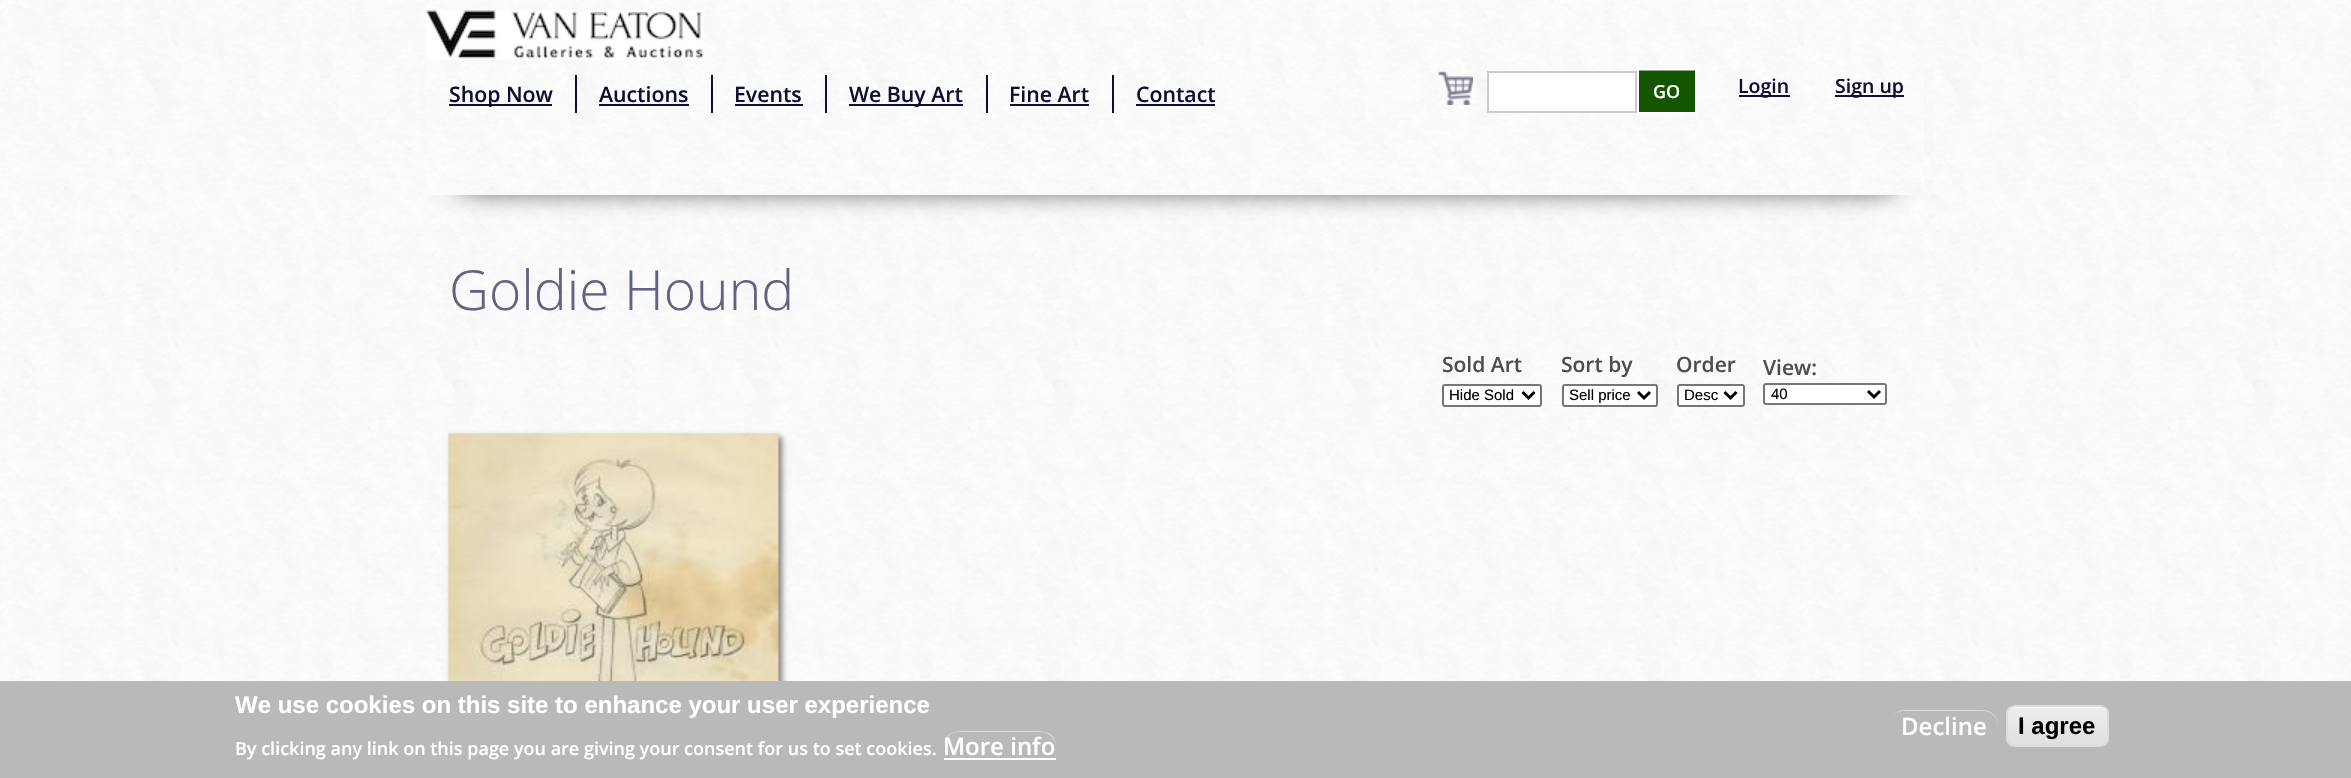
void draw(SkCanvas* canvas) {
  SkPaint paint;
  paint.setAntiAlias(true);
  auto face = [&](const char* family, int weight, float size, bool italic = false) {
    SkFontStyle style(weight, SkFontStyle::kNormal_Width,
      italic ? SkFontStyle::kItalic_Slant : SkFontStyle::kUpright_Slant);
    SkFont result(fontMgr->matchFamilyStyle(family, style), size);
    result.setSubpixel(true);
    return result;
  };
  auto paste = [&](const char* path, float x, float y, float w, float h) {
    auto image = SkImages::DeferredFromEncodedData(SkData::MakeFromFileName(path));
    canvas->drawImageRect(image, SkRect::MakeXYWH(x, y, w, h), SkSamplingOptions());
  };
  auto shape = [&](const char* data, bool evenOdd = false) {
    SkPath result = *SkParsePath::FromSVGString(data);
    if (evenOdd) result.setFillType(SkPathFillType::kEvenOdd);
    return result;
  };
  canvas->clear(0xffffffff);
  paste("img/1.png", 0, 0, 2351, 681);
  paint.setColor(0xff000000);
  paint.setMaskFilter(SkMaskFilter::MakeBlur(kNormal_SkBlurStyle, 14));
  canvas->drawRect(SkRect::MakeXYWH(461, 60, 1431, 126), paint);
  paint.setMaskFilter(nullptr);
  paste("img/2.png", 426, 0, 1498, 195);
  paste("img/3.png", 426, 10, 278, 50);
  paste("img/4.png", 1438, 71, 35, 34);
  {
    const struct { float x, y, w, h; SkColor color; } items[] = {
      {449, 104, 103, 2, 0xff0d1033},
      {575, 75, 2, 38, 0xff0d1033},
      {599, 104, 90, 2, 0xff0d1033},
      {711, 75, 2, 38, 0xff0d1033},
      {735, 104, 68, 2, 0xff0d1033},
      {825, 75, 2, 38, 0xff0d1033},
      {849, 104, 114, 2, 0xff0d1033},
      {986, 75, 2, 38, 0xff0d1033},
      {1010, 104, 79, 2, 0xff0d1033},
      {1112, 75, 2, 38, 0xff0d1033},
      {1136, 104, 79, 2, 0xff0d1033},
      {1739, 95, 51, 2, 0xff0d1033},
      {1835, 95, 69, 2, 0xff0d1033},
    };
    for (auto [x, y, w, h, color] : items) {
      paint.setColor(color);
      canvas->drawRect(SkRect::MakeXYWH(x, y, w, h), paint);
    }
  }
  paint.setColor(0xffffffff);
  canvas->drawRect(SkRect::MakeXYWH(1488, 72, 148, 40), paint);
  paint.setStroke(true);
  paint.setStrokeWidth(2);
  paint.setColor(0xffcccccc);
  canvas->drawRect(SkRect::MakeXYWH(1488, 72, 148, 40), paint);
  paint.setStroke(false);
  paint.setColor(0xff145500);
  canvas->drawRect(SkRect::MakeXYWH(1639, 71, 56, 41), paint);
  paint.setColor(0xff8aaa80);
  canvas->drawRect(SkRect::MakeXYWH(1638, 70, 57, 1), paint);
  paint.setStroke(true);
  paint.setColor(0xffffffff);
  canvas->drawRect(SkRect::MakeXYWH(1638, 69, 58, 44), paint);
  paint.setStroke(false);
  canvas->drawRoundRect(SkRect::MakeXYWH(1443, 385, 98, 21), 2, 2, paint);
  paint.setStroke(true);
  paint.setColor(0xff767676);
  canvas->drawRoundRect(SkRect::MakeXYWH(1443, 385, 98, 21), 2, 2, paint);
  paint.setStrokeWidth(3);
  paint.setColor(0xff000000);
  canvas->drawPath(shape("M1522.5 392L1528.5 398L1534.5 392"), paint);
  paint.setStroke(false);
  paint.setColor(0xffffffff);
  canvas->drawRoundRect(SkRect::MakeXYWH(1563, 385, 94, 21), 2, 2, paint);
  paint.setStroke(true);
  paint.setStrokeWidth(2);
  paint.setColor(0xff767676);
  canvas->drawRoundRect(SkRect::MakeXYWH(1563, 385, 94, 21), 2, 2, paint);
  paint.setStrokeWidth(3);
  paint.setColor(0xff000000);
  canvas->drawPath(shape("M1638 392L1644 398L1650 392"), paint);
  paint.setStroke(false);
  paint.setColor(0xffffffff);
  canvas->drawRoundRect(SkRect::MakeXYWH(1678, 385, 66, 21), 2, 2, paint);
  paint.setStroke(true);
  paint.setStrokeWidth(2);
  paint.setColor(0xff767676);
  canvas->drawRoundRect(SkRect::MakeXYWH(1678, 385, 66, 21), 2, 2, paint);
  paint.setStrokeWidth(3);
  paint.setColor(0xff000000);
  canvas->drawPath(shape("M1724.5 392L1730.5 398L1736.5 392"), paint);
  paint.setStroke(false);
  paint.setColor(0xffffffff);
  canvas->drawRoundRect(SkRect::MakeXYWH(1764, 384, 122, 20), 2, 2, paint);
  paint.setStroke(true);
  paint.setStrokeWidth(2);
  paint.setColor(0xff767676);
  canvas->drawRoundRect(SkRect::MakeXYWH(1764, 384, 122, 20), 2, 2, paint);
  paint.setStrokeWidth(3);
  paint.setColor(0xff000000);
  canvas->drawPath(shape("M1868 391L1874 397L1880 391"), paint);
  paint.setStroke(false);
  paint.setColor(0x80000000);
  paint.setMaskFilter(SkMaskFilter::MakeBlur(kNormal_SkBlurStyle, 3));
  canvas->drawRect(SkRect::MakeXYWH(452, 437, 330, 330), paint);
  paint.setMaskFilter(nullptr);
  paste("img/5.png", 448, 433, 331, 248);
  paint.setColor(0xffbab9ba);
  canvas->drawRect(SkRect::MakeXYWH(0, 681, 2351, 97), paint);
  paint.setColor(0xffdddcdd);
  canvas->drawPath(shape("M958 732H1041C1049 732 1056 739 1056 747C1056 729 1040 731 1027 731H973C960 731 944 729 944 747C944 739 950 732 958 732Z"), paint);
  paint.setColor(0xffffffff);
  canvas->drawRect(SkRect::MakeXYWH(944, 758, 112, 2), paint);
  paint.setColor(0xffdddcdd);
  canvas->drawPath(shape("M1904 711H1983C1991 711 1998 718 1998 726V725C1998 717 1991 710 1983 710H1904C1899 710 1894 713 1892 717C1894 713 1899 711 1904 711Z"), paint);
  canvas->save();
  canvas->clipPath(shape("M2015 705H2100C2105 705 2109 709 2109 714V738C2109 743 2105 747 2100 747H2015C2010 747 2006 743 2006 738V714C2006 709 2010 705 2015 705Z"), true);
  {
    const SkColor colors[] = {0xffededed, 0xffdfdfdf};
    const float stops[] = {0.05f, 1};
    const SkPoint ends[] = {{2057, 707}, {2057, 746}};
    paint.setShader(SkGradientShader::MakeLinear(ends, colors, stops, 2, SkTileMode::kClamp));
    paint.setAlpha(255);
  }
  canvas->drawRect(SkRect::MakeXYWH(2006, 707, 103, 39), paint);
  canvas->restore();
  paint.setShader(nullptr);
  paint.setColor(0xffffffff);
  canvas->drawPath(shape("M2014 708H2100C2104 708 2108 711 2108 716C2108 704 2094 707 2086 707H2029C2021 707 2007 704 2007 716C2007 711 2010 708 2014 708Z"), paint);
  paint.setStroke(true);
  paint.setStrokeWidth(2);
  paint.setColor(0xffdcdcdc);
  canvas->drawRoundRect(SkRect::MakeXYWH(2007, 706, 101, 40), 8, 8, paint);
  auto f0 = face("Open Sans", 600, 21.25f);
  paint.setStroke(false);
  paint.setColor(0xff0d1033);
  {
    const struct { const char* s; float x, y; } items[] = {
      {"Shop Now", 449, 102},
      {"Auctions", 599, 102},
      {"Events", 734, 102},
      {"We Buy Art", 849, 102},
      {"Fine Art", 1009, 102},
      {"Contact", 1136, 102},
    };
    for (auto [s, x, y] : items) {
      canvas->drawString(s, x, y, f0, paint);
    }
  }
  auto f1 = face("Open Sans", 600, 19.5f);
  canvas->drawString("Login", 1738, 93, f1, paint);
  canvas->drawString("Sign up", 1835, 93, f1, paint);
  auto f2 = face("Open Sans", 600, 18);
  paint.setColor(0xffffffff);
  canvas->drawString("GO", 1653, 98, f2, paint);
  auto f3 = face("Open Sans", 300, 55.25f);
  paint.setColor(0xff616384);
  canvas->drawString("Goldie Hound", 449, 310, f3, paint);
  auto f4 = face("Open Sans", 600, 21);
  paint.setColor(0xff4d4d4d);
  canvas->drawString("Sold Art", 1442, 372, f4, paint);
  auto f5 = face("Liberation Sans", 400, 15);
  paint.setColor(0xff000000);
  canvas->drawString("Hide Sold", 1449, 400, f5, paint);
  paint.setColor(0xff4d4d4d);
  canvas->drawString("Sort by", 1561, 372, f4, paint);
  paint.setColor(0xff000000);
  canvas->drawString("Sell price", 1569, 400, f5, paint);
  paint.setColor(0xff4d4d4d);
  canvas->drawString("Order", 1676, 372, f4, paint);
  paint.setColor(0xff000000);
  canvas->drawString("Desc", 1684, 400, f5, paint);
  paint.setColor(0xff4d4d4d);
  canvas->drawString("View:", 1763, 375, f4, paint);
  paint.setColor(0xff000000);
  canvas->drawString("40", 1771, 399, f5, paint);
  auto f6 = face("Liberation Sans", 700, 24);
  paint.setColor(0xffffffff);
  canvas->drawString("We use cookies on this site to enhance your user experience", 235, 713, f6, paint);
  canvas->drawString("By clicking any link on this page you are giving your consent for us to set cookies.", 235, 755, f2, paint);
  auto f7 = face("Open Sans", 600, 24);
  canvas->drawString("More info", 943, 755, f7, paint);
  canvas->drawString("Decline", 1901, 735, f7, paint);
  paint.setColor(0xff000000);
  canvas->drawString("I agree", 2018, 734, f6, paint);
}
